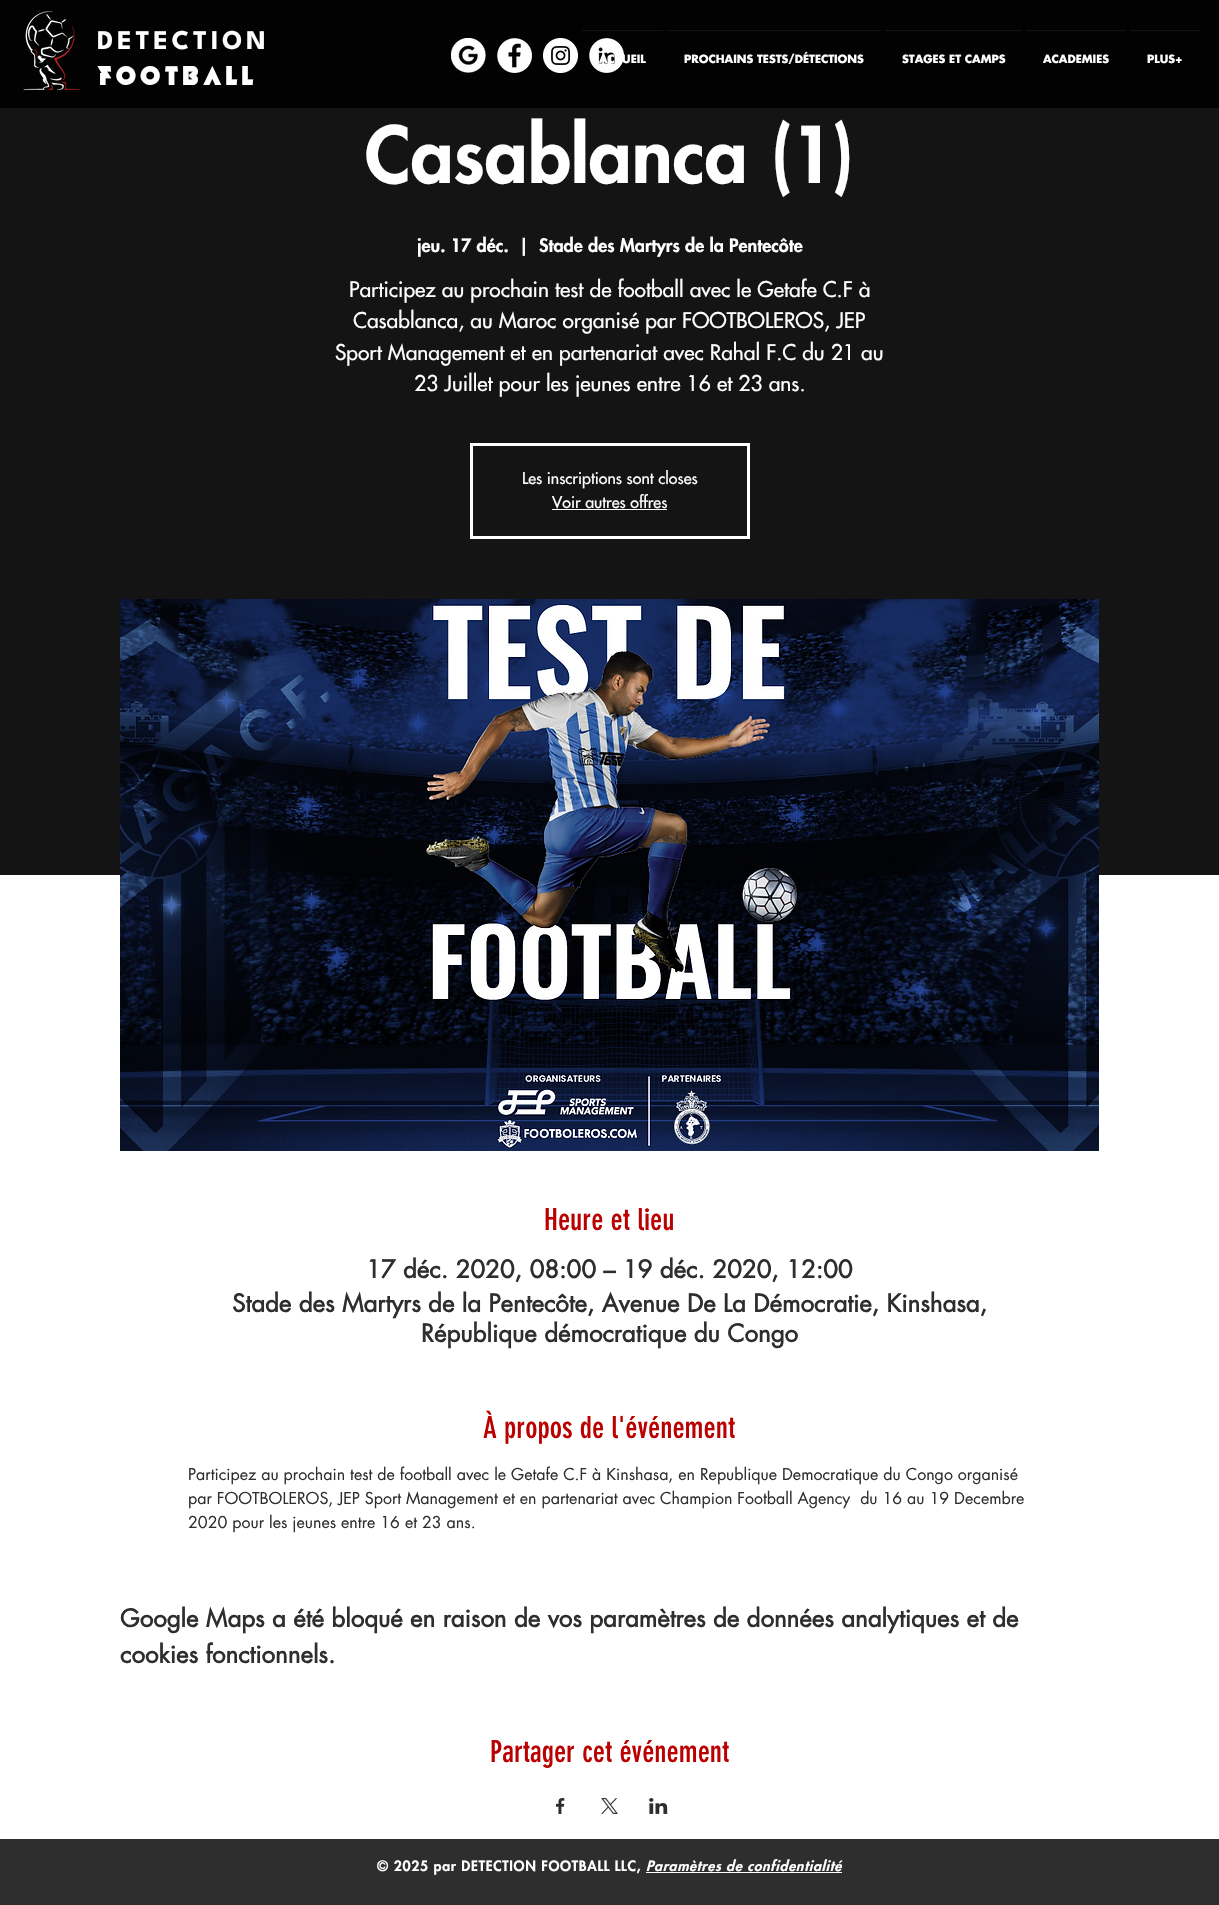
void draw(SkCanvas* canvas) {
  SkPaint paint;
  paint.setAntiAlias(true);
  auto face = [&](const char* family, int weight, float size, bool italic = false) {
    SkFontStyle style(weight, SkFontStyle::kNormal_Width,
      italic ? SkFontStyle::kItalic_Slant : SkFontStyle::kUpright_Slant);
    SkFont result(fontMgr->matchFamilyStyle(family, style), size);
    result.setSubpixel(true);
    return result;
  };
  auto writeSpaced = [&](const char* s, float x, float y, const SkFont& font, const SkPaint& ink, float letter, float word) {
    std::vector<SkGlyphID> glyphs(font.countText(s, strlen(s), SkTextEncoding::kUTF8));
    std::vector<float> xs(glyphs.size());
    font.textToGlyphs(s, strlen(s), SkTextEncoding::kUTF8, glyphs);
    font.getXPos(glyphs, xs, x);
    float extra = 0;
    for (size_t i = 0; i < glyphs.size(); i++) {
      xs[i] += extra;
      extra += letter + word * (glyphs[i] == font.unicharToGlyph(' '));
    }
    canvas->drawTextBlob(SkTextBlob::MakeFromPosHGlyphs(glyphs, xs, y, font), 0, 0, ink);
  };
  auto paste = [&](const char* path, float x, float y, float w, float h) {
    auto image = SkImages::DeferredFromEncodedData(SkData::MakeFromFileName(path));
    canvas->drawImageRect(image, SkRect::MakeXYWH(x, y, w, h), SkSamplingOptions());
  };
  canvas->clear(0xffffffff);
  paint.setColor(0xff020202);
  canvas->drawRect(SkRect::MakeXYWH(0, 0, 1219, 108), paint);
  paste("img/1.png", 23, 11, 58, 80);
  paste("img/2.png", 451, 38, 35, 35);
  paste("img/3.png", 497, 38, 35, 35);
  paste("img/4.png", 543, 38, 35, 35);
  {
    const struct { float x, y, w, h; SkColor color; } items[] = {
      {582, 30, 81, 1, 0xff141414},
      {667, 30, 214, 1, 0xff141414},
      {885, 30, 137, 1, 0xff141414},
      {1026, 30, 100, 1, 0xff141414},
      {1130, 30, 70, 1, 0xff141414},
      {0, 108, 1219, 767, 0xff141414},
    };
    for (auto [x, y, w, h, color] : items) {
      paint.setColor(color);
      canvas->drawRect(SkRect::MakeXYWH(x, y, w, h), paint);
    }
  }
  paint.setStroke(true);
  paint.setStrokeWidth(3);
  paint.setColor(0xffffffff);
  canvas->drawRect(SkRect::MakeXYWH(471.5f, 444.5f, 277, 93), paint);
  paint.setStroke(false);
  canvas->drawRect(SkRect::MakeXYWH(552, 509, 115, 1), paint);
  paste("img/6.png", 120, 599, 979, 552);
  paste("img/7.png", 556, 1798, 9, 16);
  paste("img/8.png", 601, 1798, 17, 16);
  paste("img/9.png", 649, 1798, 19, 16);
  paint.setColor(0xff2f2e2e);
  canvas->drawRect(SkRect::MakeXYWH(0, 1839, 1219, 66), paint);
  paint.setColor(0xffffffff);
  canvas->drawRect(SkRect::MakeXYWH(646, 1872, 196, 1), paint);
  auto f0 = face("League Spartan", 700, 27);
  writeSpaced("DETECTION", 97, 49, f0, paint, 4, 0);
  auto f1 = face("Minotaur", 700, 27);
  writeSpaced("FOOTBALL", 97, 85, f1, paint, 4, 0);
  auto f2 = face("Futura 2", 700, 11);
  canvas->drawString("ACCUEIL", 599, 63, f2, paint);
  paste("img/5.png", 589, 38, 35, 35);
  {
    const struct { const char* s; float x, y; } items[] = {
      {"PROCHAINS TESTS/DÉTECTIONS", 684, 63},
      {"STAGES ET CAMPS", 902, 63},
      {"ACADEMIES", 1043, 63},
      {"PLUS+", 1147, 63},
    };
    for (auto [s, x, y] : items) {
      canvas->drawString(s, x, y, f2, paint);
    }
  }
  auto f3 = face("Futura", 900, 76);
  canvas->drawString("Casablanca (1)", 365, 183, f3, paint);
  auto f4 = face("Futura", 900, 18);
  {
    const struct { const char* s; float x, y; } items[] = {
      {"jeu. 17 déc.", 417, 252},
      {"|", 519, 252},
      {"Stade des Martyrs de la Pentecôte", 539, 252},
    };
    for (auto [s, x, y] : items) {
      canvas->drawString(s, x, y, f4, paint);
    }
  }
  auto f5 = face("Futura", 500, 21);
  {
    const struct { const char* s; float x, y; } items[] = {
      {"Participez au prochain test de football avec le Getafe C.F à", 349, 297},
      {"Casablanca, au Maroc organisé par FOOTBOLEROS, JEP", 353, 328},
      {"Sport Management et en partenariat avec Rahal F.C du 21 au", 335, 360},
      {"23 Juillet pour les jeunes entre 16 et 23 ans.", 414, 391},
    };
    for (auto [s, x, y] : items) {
      canvas->drawString(s, x, y, f5, paint);
    }
  }
  auto f6 = face("Futura", 500, 16);
  canvas->drawString("Les inscriptions sont closes", 522, 484, f6, paint);
  canvas->drawString("Voir autres offres", 552, 508, f6, paint);
  auto f7 = face("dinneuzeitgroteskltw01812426", 400, 30);
  paint.setColor(0xffbb0000);
  canvas->drawString("Heure et lieu", 544, 1230, f7, paint);
  auto f8 = face("Futura", 700, 24);
  paint.setColor(0xff2f2e2e);
  {
    const struct { const char* s; float x, y; } items[] = {
      {"17 déc. 2020, 08:00 – 19 déc. 2020, 12:00", 366, 1278},
      {"Stade des Martyrs de la Pentecôte, Avenue De La Démocratie, Kinshasa,", 232, 1312},
      {"République démocratique du Congo", 421, 1342},
    };
    for (auto [s, x, y] : items) {
      canvas->drawString(s, x, y, f8, paint);
    }
  }
  paint.setColor(0xffbb0000);
  canvas->drawString("À propos de l'événement", 483, 1438, f7, paint);
  auto f9 = face("Futura", 400, 16);
  paint.setColor(0xff2f2e2e);
  {
    const struct { const char* s; float x, y; } items[] = {
      {"Participez au prochain test de football avec le Getafe C.F à Kinshasa, en Republique Democratique du Congo organisé", 188, 1480},
      {"par FOOTBOLEROS, JEP Sport Management et en partenariat avec Champion Football Agency  du 16 au 19 Decembre", 188, 1504},
      {"2020 pour les jeunes entre 16 et 23 ans.", 188, 1528},
    };
    for (auto [s, x, y] : items) {
      canvas->drawString(s, x, y, f9, paint);
    }
  }
  canvas->drawString("Google Maps a été bloqué en raison de vos paramètres de données analytiques et de", 120, 1627, f8, paint);
  canvas->drawString("cookies fonctionnels.", 120, 1663, f8, paint);
  paint.setColor(0xffbb0000);
  canvas->drawString("Partager cet événement", 490, 1762, f7, paint);
  auto f10 = face("Futura", 900, 14);
  paint.setColor(0xffffffff);
  writeSpaced("© 2025 par DETECTION FOOTBALL LLC,", 377, 1871, f10, paint, 0.7f, 0);
  auto f11 = face("Futura", 900, 14, true);
  writeSpaced("Paramètres de confidentialité", 646, 1871, f11, paint, 0.7f, 0);
}
